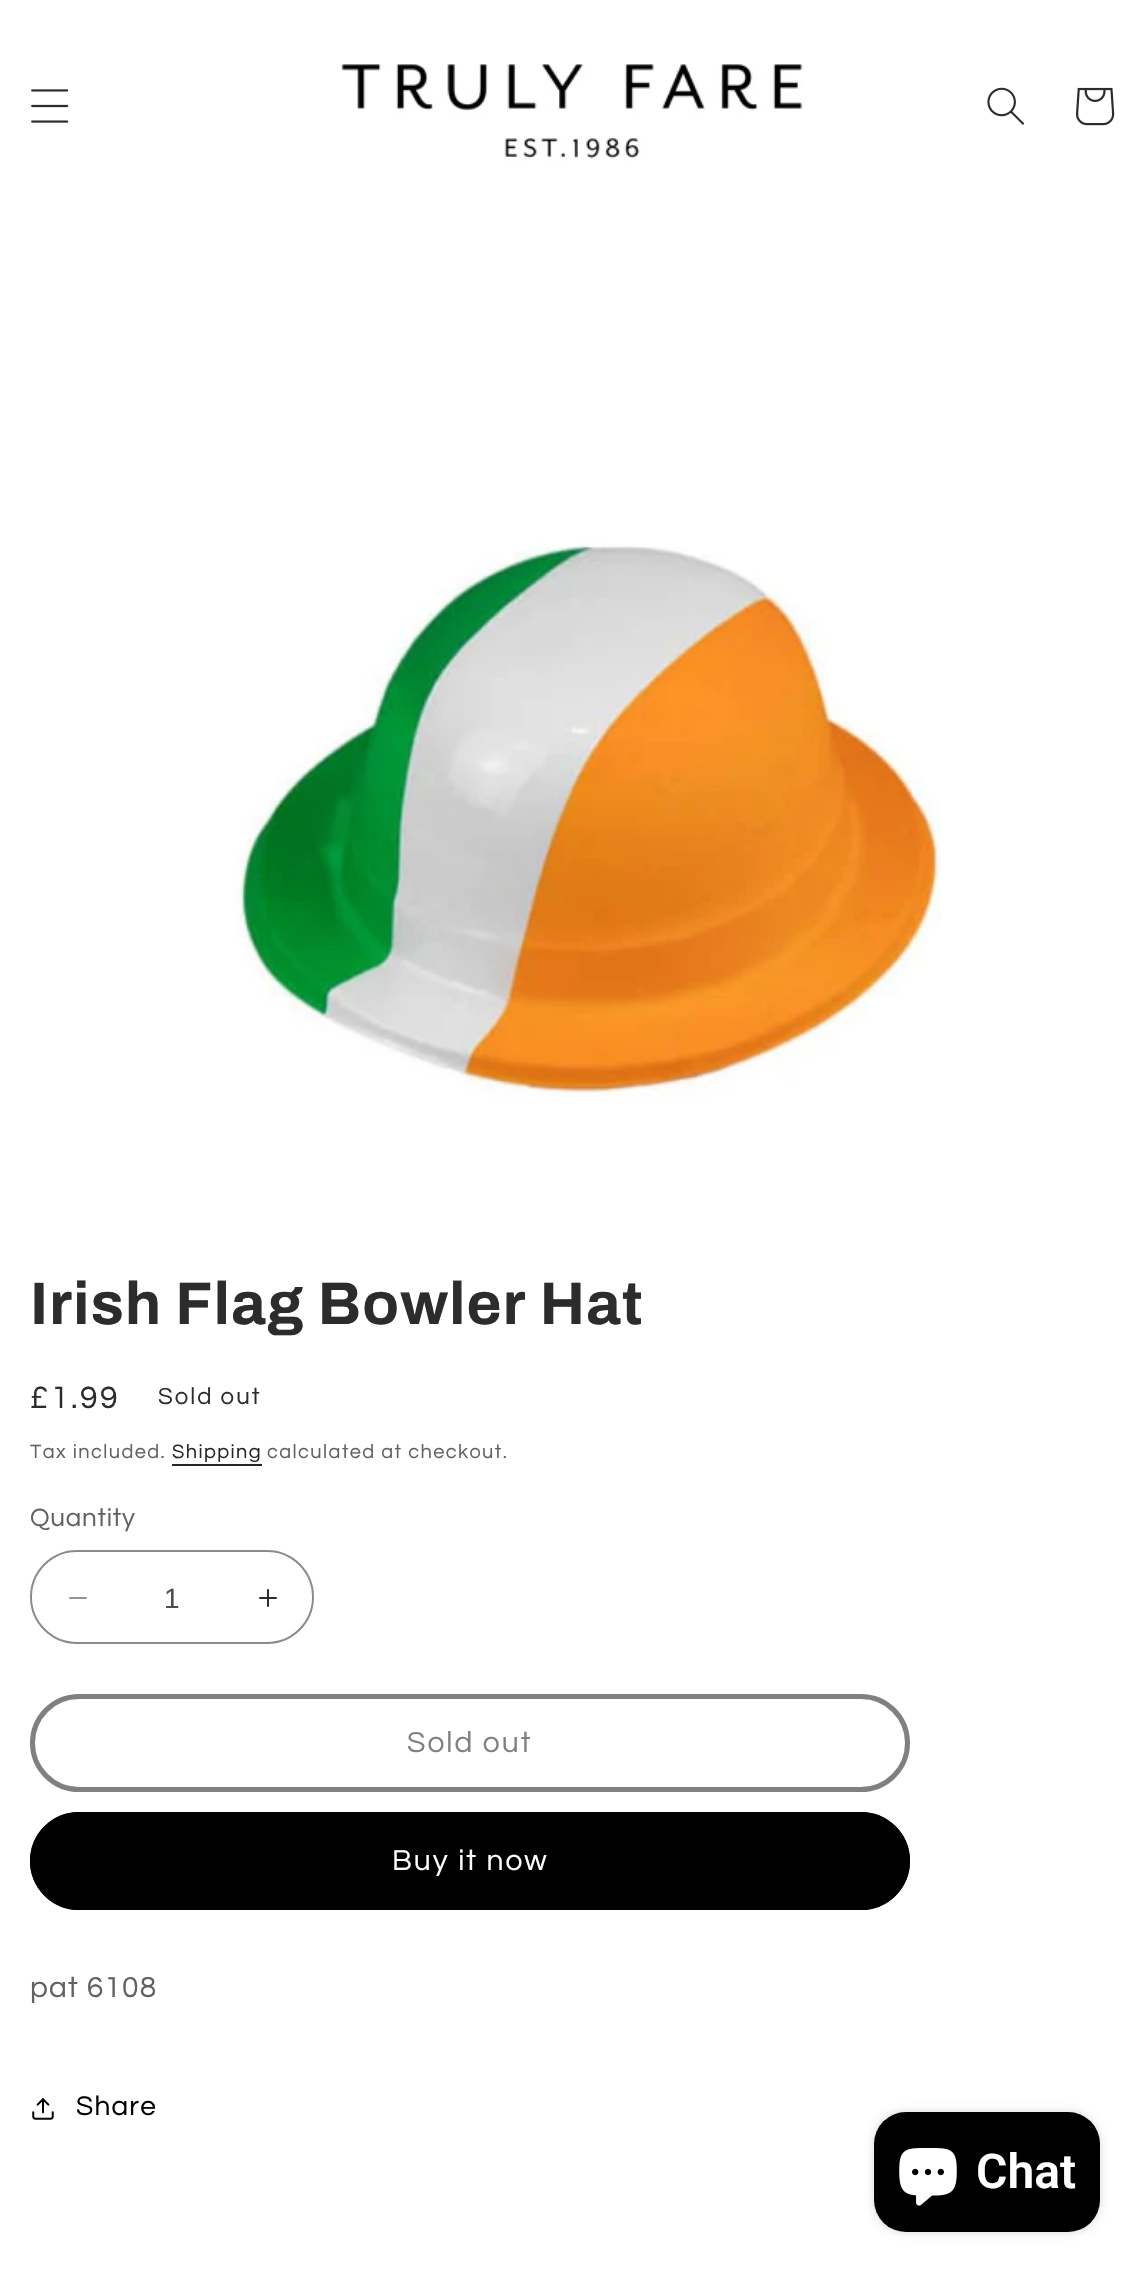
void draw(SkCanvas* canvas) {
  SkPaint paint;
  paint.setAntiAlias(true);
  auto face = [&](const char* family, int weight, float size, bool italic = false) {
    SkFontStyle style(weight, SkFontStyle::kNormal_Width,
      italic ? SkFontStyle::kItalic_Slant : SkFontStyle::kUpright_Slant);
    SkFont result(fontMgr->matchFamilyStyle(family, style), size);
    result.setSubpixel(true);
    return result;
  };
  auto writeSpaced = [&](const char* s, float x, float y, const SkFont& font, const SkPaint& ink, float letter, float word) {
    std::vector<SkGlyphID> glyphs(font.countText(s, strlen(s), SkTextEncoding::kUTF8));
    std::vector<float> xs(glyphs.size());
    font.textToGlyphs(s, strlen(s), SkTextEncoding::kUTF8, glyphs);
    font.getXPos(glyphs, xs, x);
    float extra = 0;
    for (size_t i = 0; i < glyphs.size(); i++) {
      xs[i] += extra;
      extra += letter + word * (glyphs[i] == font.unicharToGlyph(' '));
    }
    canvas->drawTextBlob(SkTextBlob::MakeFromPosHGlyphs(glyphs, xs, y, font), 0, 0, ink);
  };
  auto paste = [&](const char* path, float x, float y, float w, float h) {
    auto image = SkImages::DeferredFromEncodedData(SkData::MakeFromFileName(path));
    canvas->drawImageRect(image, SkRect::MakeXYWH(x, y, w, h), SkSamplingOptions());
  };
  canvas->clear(0xffffffff);
  paste("img/1.png", 31, 89, 38, 34);
  paste("img/2.png", 341, 64, 462, 97);
  paste("img/3.png", 987, 87, 37, 38);
  paste("img/4.png", 1076, 87, 39, 39);
  paste("img/5.png", 233, 543, 708, 555);
  paint.setColor(0xff262626);
  canvas->drawRect(SkRect::MakeXYWH(172, 1464, 90, 2), paint);
  paste("img/6.png", 69, 1597, 18, 2);
  paste("img/7.png", 259, 1589, 18, 18);
  paint.setStroke(true);
  paint.setStrokeWidth(2);
  paint.setColor(0xff8b8b8c);
  canvas->drawRoundRect(SkRect::MakeXYWH(31, 1551, 282, 92), 46, 46, paint);
  paint.setStrokeWidth(5);
  paint.setColor(0xff808080);
  canvas->drawRoundRect(SkRect::MakeXYWH(32.5f, 1696.5f, 875, 93), 46.5f, 46.5f, paint);
  paint.setStroke(false);
  paint.setColor(0xff000000);
  canvas->drawRoundRect(SkRect::MakeXYWH(30, 1812, 880, 98), 49, 49, paint);
  paint.setStroke(true);
  paint.setStrokeWidth(4);
  canvas->drawRoundRect(SkRect::MakeXYWH(32, 1814, 876, 94), 47, 47, paint);
  paste("img/8.png", 32, 2098, 22, 22);
  paint.setStroke(false);
  paint.setColor(0x26000000);
  paint.setMaskFilter(SkMaskFilter::MakeBlur(kNormal_SkBlurStyle, 5));
  canvas->drawRoundRect(SkRect::MakeXYWH(874, 2112, 226, 120), 32, 32, paint);
  paint.setMaskFilter(nullptr);
  paint.setColor(0xff000000);
  canvas->drawRoundRect(SkRect::MakeXYWH(874, 2112, 226, 120), 32, 32, paint);
  paste("img/9.png", 899, 2148, 58, 58);
  auto f0 = face("Archivo", 700, 60);
  paint.setColor(0xff2c2c2e);
  writeSpaced("Irish Flag Bowler Hat", 30, 1324, f0, paint, 1.2f, 0);
  auto f1 = face("Questrial", 400, 32);
  writeSpaced("£1.99", 30, 1408, f1, paint, 2.5f, 0);
  auto f2 = face("Questrial", 400, 24);
  writeSpaced("Sold out", 158, 1404, f2, paint, 2, 0);
  auto f3 = face("Questrial", 400, 20);
  paint.setColor(0xff616162);
  writeSpaced("Tax included.", 30, 1458, f3, paint, 1.4f, 0);
  paint.setColor(0xff262626);
  writeSpaced("Shipping", 172, 1458, f3, paint, 1.4f, 0);
  paint.setColor(0xff616162);
  writeSpaced("calculated at checkout.", 267, 1458, f3, paint, 1.4f, 0);
  auto f4 = face("Questrial", 400, 26);
  writeSpaced("Quantity", 30, 1526, f4, paint, 0.75f, 0);
  auto f5 = face("Liberation Sans", 400, 28);
  paint.setColor(0xff4c4c4d);
  canvas->drawString("1", 164, 1608, f5, paint);
  auto f6 = face("Questrial", 400, 30);
  paint.setColor(0xff808080);
  writeSpaced("Sold out", 407, 1752, f6, paint, 2, 0);
  paint.setColor(0xffffffff);
  writeSpaced("Buy it now", 392, 1870, f6, paint, 2, 0);
  paint.setColor(0xff616162);
  writeSpaced("pat 6108", 30, 1997, f6, paint, 1.2f, 0);
  auto f7 = face("Questrial", 400, 28);
  paint.setColor(0xff000000);
  writeSpaced("Share", 76, 2115, f7, paint, 1.2f, 0);
  auto f8 = face("Roboto", 600, 48);
  paint.setColor(0xffffffff);
  canvas->drawString("Chat", 976, 2188, f8, paint);
}
